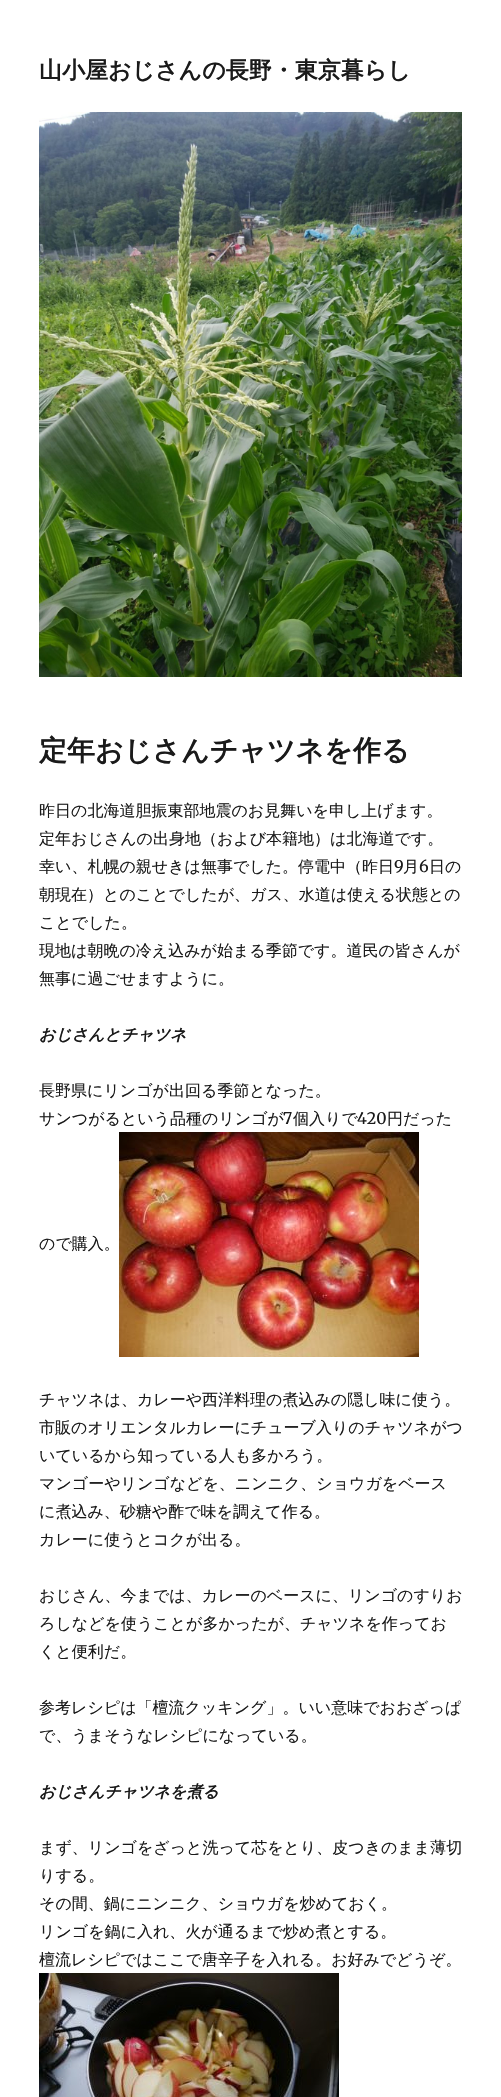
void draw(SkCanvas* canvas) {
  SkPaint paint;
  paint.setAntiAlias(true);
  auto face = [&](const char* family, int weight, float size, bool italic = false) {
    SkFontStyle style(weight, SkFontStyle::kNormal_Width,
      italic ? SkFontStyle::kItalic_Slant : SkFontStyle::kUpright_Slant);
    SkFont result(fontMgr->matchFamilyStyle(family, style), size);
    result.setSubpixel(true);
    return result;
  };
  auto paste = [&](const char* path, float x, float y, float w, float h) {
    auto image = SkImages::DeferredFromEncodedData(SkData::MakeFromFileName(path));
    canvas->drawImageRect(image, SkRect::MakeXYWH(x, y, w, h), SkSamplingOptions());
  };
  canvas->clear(0xffffffff);
  paste("img/1.png", 39, 112, 423, 565);
  paste("img/2.png", 119, 1132, 300, 225);
  paste("img/3.png", 39, 1973, 300, 124);
  auto f0 = face("WenQuanYi Zen Hei", 700, 23);
  paint.setColor(0xff1a1a1a);
  canvas->drawString("山小屋おじさんの長野・東京暮らし", 39, 78, f0, paint);
  auto f1 = face("WenQuanYi Zen Hei", 700, 28);
  canvas->drawString("定年おじさんチャツネを作る", 39, 760, f1, paint);
  auto f2 = face("WenQuanYi Zen Hei", 500, 16);
  {
    const struct { const char* s; float x, y; } items[] = {
      {"昨日の北海道胆振東部地震のお見舞いを申し上げます。", 39, 816},
      {"定年おじさんの出身地（および本籍地）は北海道です。", 39, 844},
      {"幸い、札幌の親せきは無事でした。停電中（昨日", 39, 872},
    };
    for (auto [s, x, y] : items) {
      canvas->drawString(s, x, y, f2, paint);
    }
  }
  auto f3 = face("Merriweather", 400, 16);
  canvas->drawString("9", 394, 872, f3, paint);
  canvas->drawString("月", 403, 872, f2, paint);
  canvas->drawString("6", 419, 872, f3, paint);
  {
    const struct { const char* s; float x, y; } items[] = {
      {"日の", 429, 872},
      {"朝現在）とのことでしたが、ガス、水道は使える状態との", 39, 900},
      {"ことでした。", 39, 928},
      {"現地は朝晩の冷え込みが始まる季節です。道民の皆さんが", 39, 956},
      {"無事に過ごせますように。", 39, 984},
    };
    for (auto [s, x, y] : items) {
      canvas->drawString(s, x, y, f2, paint);
    }
  }
  auto f4 = face("WenQuanYi Zen Hei", 700, 16, true);
  canvas->drawString("おじさんとチャツネ", 39, 1040, f4, paint);
  canvas->drawString("長野県にリンゴが出回る季節となった。", 39, 1096, f2, paint);
  canvas->drawString("サンつがるという品種のリンゴが", 39, 1124, f2, paint);
  canvas->drawString("7", 283, 1124, f3, paint);
  canvas->drawString("個入りで", 293, 1124, f2, paint);
  canvas->drawString("420", 357, 1124, f3, paint);
  {
    const struct { const char* s; float x, y; } items[] = {
      {"円だった", 387, 1124},
      {"ので購入。", 39, 1249},
      {"チャツネは、カレーや西洋料理の煮込みの隠し味に使う。", 39, 1405},
      {"市販のオリエンタルカレーにチューブ入りのチャツネがつ", 39, 1433},
      {"いているから知っている人も多かろう。", 39, 1461},
      {"マンゴーやリンゴなどを、ニンニク、ショウガをベース", 39, 1489},
      {"に煮込み、砂糖や酢で味を調えて作る。", 39, 1517},
      {"カレーに使うとコクが出る。", 39, 1545},
      {"おじさん、今までは、カレーのベースに、リンゴのすりお", 39, 1601},
      {"ろしなどを使うことが多かったが、チャツネを作ってお", 39, 1629},
      {"くと便利だ。", 39, 1657},
      {"参考レシピは「檀流クッキング」。いい意味でおおざっぱ", 39, 1713},
      {"で、うまそうなレシピになっている。", 39, 1741},
    };
    for (auto [s, x, y] : items) {
      canvas->drawString(s, x, y, f2, paint);
    }
  }
  canvas->drawString("おじさんチャツネを煮る", 39, 1797, f4, paint);
  {
    const struct { const char* s; float x, y; } items[] = {
      {"まず、リンゴをざっと洗って芯をとり、皮つきのまま薄切", 39, 1853},
      {"りする。", 39, 1881},
      {"その間、鍋にニンニク、ショウガを炒めておく。", 39, 1909},
      {"リンゴを鍋に入れ、火が通るまで炒め煮とする。", 39, 1937},
      {"檀流レシピではここで唐辛子を入れる。お好みでどうぞ。", 39, 1965},
    };
    for (auto [s, x, y] : items) {
      canvas->drawString(s, x, y, f2, paint);
    }
  }
}
